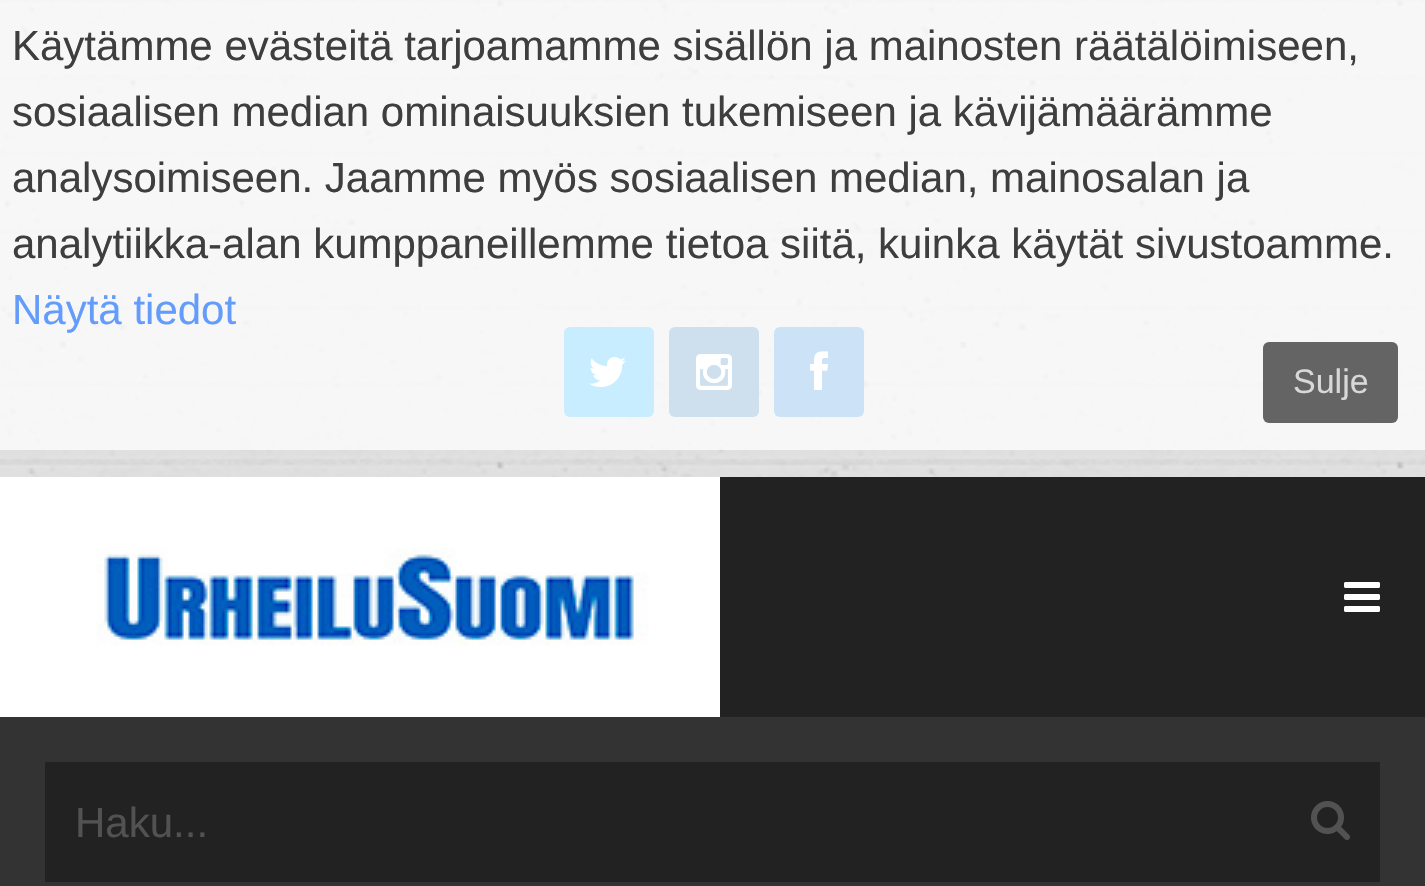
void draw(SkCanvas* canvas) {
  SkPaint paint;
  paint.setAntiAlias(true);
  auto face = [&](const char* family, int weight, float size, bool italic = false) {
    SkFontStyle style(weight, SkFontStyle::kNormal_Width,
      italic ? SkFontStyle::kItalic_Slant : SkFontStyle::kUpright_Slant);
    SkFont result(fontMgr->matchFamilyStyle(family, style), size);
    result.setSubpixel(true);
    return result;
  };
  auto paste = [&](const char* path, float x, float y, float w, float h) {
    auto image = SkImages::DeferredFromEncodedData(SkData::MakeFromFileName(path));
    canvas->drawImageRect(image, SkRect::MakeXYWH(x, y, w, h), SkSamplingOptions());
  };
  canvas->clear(0xffffffff);
  paste("img/1.png", 0, 0, 1425, 477);
  paint.setColor(0xff20b6ff);
  canvas->drawRoundRect(SkRect::MakeXYWH(564, 327, 90, 90), 6, 6, paint);
  paste("img/2.png", 589, 357, 37, 30);
  paint.setColor(0xff3b82b9);
  canvas->drawRoundRect(SkRect::MakeXYWH(669, 327, 90, 90), 6, 6, paint);
  paste("img/3.png", 696, 354, 36, 36);
  paint.setColor(0xff3289da);
  canvas->drawRoundRect(SkRect::MakeXYWH(774, 327, 90, 90), 6, 6, paint);
  paste("img/4.png", 810, 351, 18, 39);
  paint.setColor(0xbfffffff);
  canvas->drawRect(SkRect::MakeXYWH(0, 0, 1425, 450), paint);
  paint.setColor(0xbf333333);
  canvas->drawRoundRect(SkRect::MakeXYWH(1263, 342, 135, 81), 6, 6, paint);
  paint.setColor(0xff333333);
  canvas->drawRect(SkRect::MakeXYWH(0, 717, 1425, 169), paint);
  paste("img/5.png", 0, 477, 720, 240);
  paint.setColor(0xff222222);
  canvas->drawRect(SkRect::MakeXYWH(720, 477, 705, 240), paint);
  paste("img/6.png", 1344, 582, 36, 30);
  canvas->drawRect(SkRect::MakeXYWH(45, 762, 1335, 120), paint);
  paste("img/7.png", 1311, 801, 39, 39);
  auto f0 = face("Liberation Sans", 400, 42);
  paint.setColor(0xff3e3e3e);
  {
    const struct { const char* s; float x, y; } items[] = {
      {"Käytämme evästeitä tarjoamamme sisällön ja mainosten räätälöimiseen,", 12, 60},
      {"sosiaalisen median ominaisuuksien tukemiseen ja kävijämäärämme", 12, 126},
      {"analysoimiseen. Jaamme myös sosiaalisen median, mainosalan ja", 12, 192},
      {"analytiikka-alan kumppaneillemme tietoa siitä, kuinka käytät sivustoamme.", 12, 258},
    };
    for (auto [s, x, y] : items) {
      canvas->drawString(s, x, y, f0, paint);
    }
  }
  paint.setColor(0xff639cfb);
  canvas->drawString("Näytä tiedot", 12, 324, f0, paint);
  auto f1 = face("Liberation Sans", 400, 34);
  paint.setColor(0xffd8d8d8);
  canvas->drawString("Sulje", 1293, 393, f1, paint);
  paint.setColor(0xff525252);
  canvas->drawString("Haku...", 75, 837, f0, paint);
}
